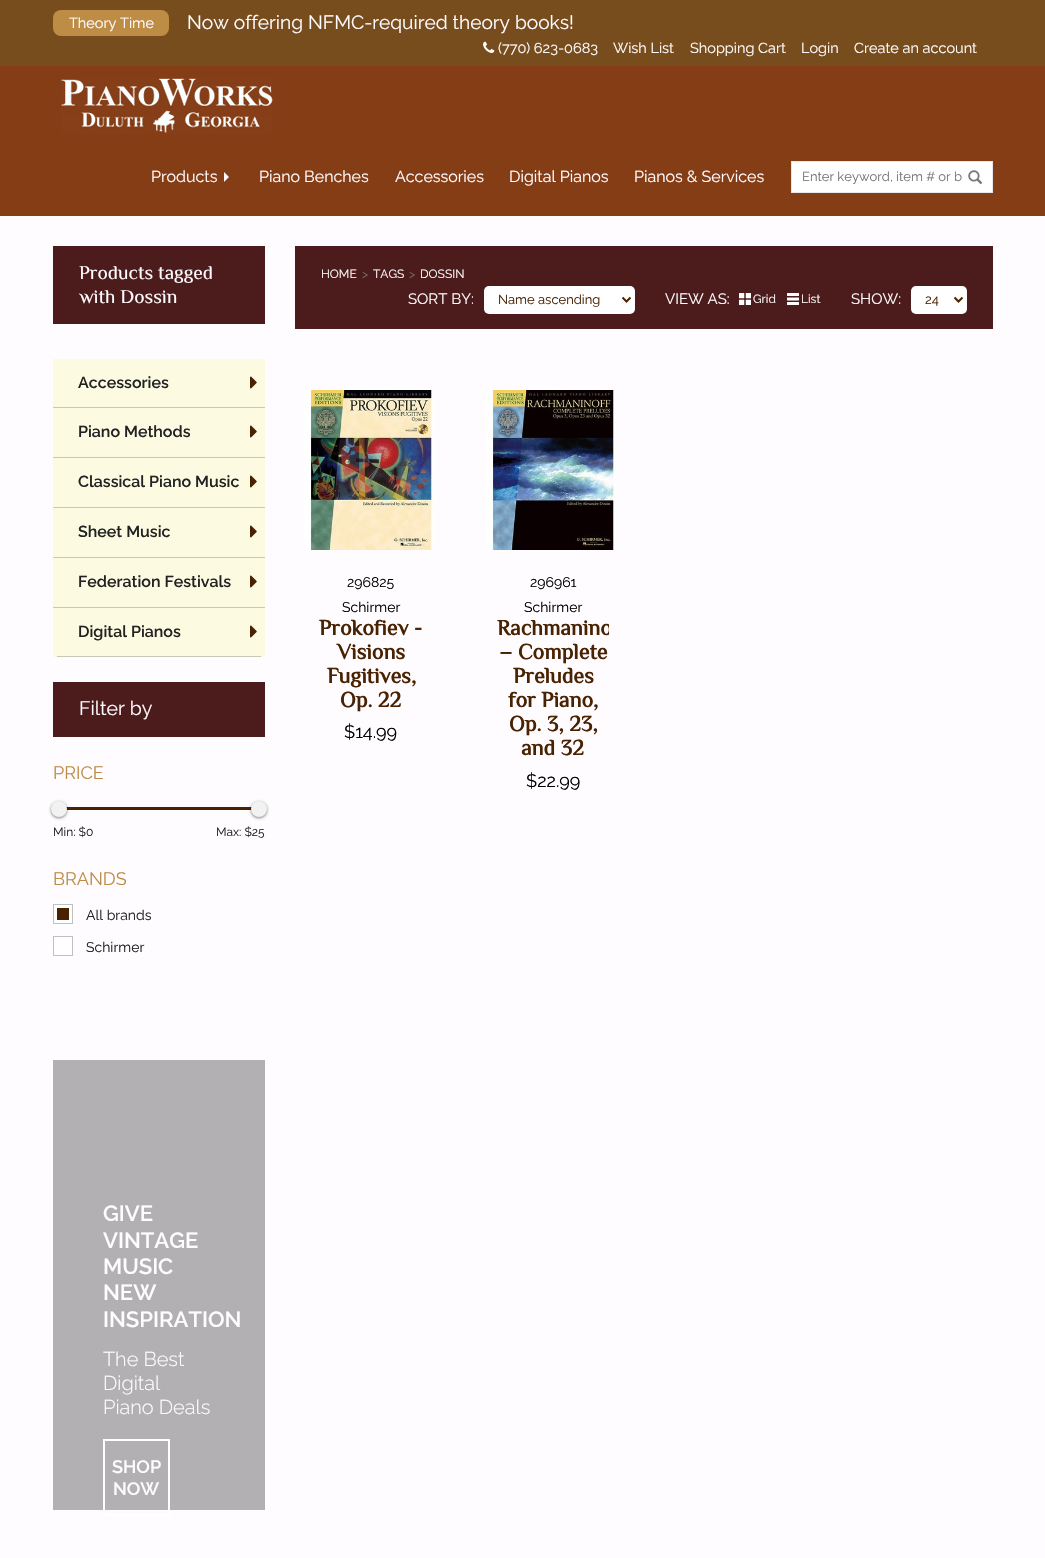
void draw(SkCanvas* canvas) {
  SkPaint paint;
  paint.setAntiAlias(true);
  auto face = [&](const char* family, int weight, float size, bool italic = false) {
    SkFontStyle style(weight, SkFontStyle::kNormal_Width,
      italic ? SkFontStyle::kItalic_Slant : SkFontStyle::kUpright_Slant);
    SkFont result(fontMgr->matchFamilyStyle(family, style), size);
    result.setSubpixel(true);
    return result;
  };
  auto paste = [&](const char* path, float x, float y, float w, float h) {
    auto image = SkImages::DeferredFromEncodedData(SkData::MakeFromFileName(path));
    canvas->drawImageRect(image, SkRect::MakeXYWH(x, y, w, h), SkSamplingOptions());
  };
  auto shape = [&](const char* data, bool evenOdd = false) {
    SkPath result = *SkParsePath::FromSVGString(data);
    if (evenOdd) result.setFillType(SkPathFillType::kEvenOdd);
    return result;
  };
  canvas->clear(0xfffffcff);
  paint.setColor(0xff774d1d);
  canvas->drawRect(SkRect::MakeXYWH(0, 0, 1045, 66), paint);
  paint.setColor(0xffbd8d46);
  canvas->drawRoundRect(SkRect::MakeXYWH(53, 10, 116, 26), 8, 8, paint);
  paste("img/1.png", 483, 41, 12, 12);
  paint.setColor(0xff853d16);
  canvas->drawRect(SkRect::MakeXYWH(0, 66, 1045, 150), paint);
  paste("img/2.png", 61, 78, 212, 55);
  paint.setColor(0xfffffcff);
  canvas->drawPath(shape("M224 182V172L229 177Z"), paint);
  paint.setColor(0xffffffff);
  canvas->drawRect(SkRect::MakeXYWH(791.5f, 161.5f, 201, 31), paint);
  paint.setStroke(true);
  paint.setStrokeWidth(1);
  paint.setColor(0xffeae7ea);
  canvas->drawRect(SkRect::MakeXYWH(791.5f, 161.5f, 201, 31), paint);
  paste("img/3.png", 968, 170, 15, 15);
  paint.setStroke(false);
  paint.setColor(0xff4c1b1b);
  canvas->drawRect(SkRect::MakeXYWH(53, 246, 212, 78), paint);
  canvas->drawRect(SkRect::MakeXYWH(295, 246, 698, 83), paint);
  paint.setColor(0xffffffff);
  canvas->drawRoundRect(SkRect::MakeXYWH(484, 286, 151, 28), 5, 5, paint);
  paint.setStroke(true);
  paint.setStrokeWidth(2);
  paint.setColor(0xff492201);
  canvas->drawPath(shape("M622.5 297.5L626.5 301.5L630.5 297.5"), paint);
  paste("img/4.png", 739, 293, 12, 12);
  paste("img/5.png", 787, 293, 12, 12);
  paint.setStroke(false);
  paint.setColor(0xffffffff);
  canvas->drawRoundRect(SkRect::MakeXYWH(911, 286, 56, 28), 5, 5, paint);
  paint.setStroke(true);
  paint.setColor(0xff492201);
  canvas->drawPath(shape("M954.5 297.5L958.5 301.5L962.5 297.5"), paint);
  paint.setStroke(false);
  paint.setColor(0xfffcfae1);
  canvas->drawRect(SkRect::MakeXYWH(53, 359, 212, 298), paint);
  paint.setColor(0xffcac8b4);
  canvas->drawRect(SkRect::MakeXYWH(53, 407, 212, 1), paint);
  paste("img/6.png", 250, 376, 7, 13);
  canvas->drawRect(SkRect::MakeXYWH(53, 457, 212, 1), paint);
  paste("img/6.png", 250, 425, 7, 13);
  canvas->drawRect(SkRect::MakeXYWH(53, 507, 212, 1), paint);
  paste("img/6.png", 250, 475, 7, 13);
  canvas->drawRect(SkRect::MakeXYWH(53, 557, 212, 1), paint);
  paste("img/6.png", 250, 525, 7, 13);
  canvas->drawRect(SkRect::MakeXYWH(53, 607, 212, 1), paint);
  paste("img/6.png", 250, 575, 7, 13);
  canvas->drawRect(SkRect::MakeXYWH(57, 656, 204, 1), paint);
  paste("img/6.png", 250, 625, 7, 13);
  paint.setColor(0xff4c1b1b);
  canvas->drawRect(SkRect::MakeXYWH(53, 682, 212, 55), paint);
  paint.setColor(0xff492201);
  canvas->drawRect(SkRect::MakeXYWH(60, 807, 200, 3), paint);
  paint.setColor(0x80000000);
  paint.setMaskFilter(SkMaskFilter::MakeBlur(kNormal_SkBlurStyle, 1.5f));
  canvas->drawRoundRect(SkRect::MakeXYWH(51, 802, 16, 16), 8, 8, paint);
  paint.setMaskFilter(nullptr);
  paint.setColor(0xfff2f2f2);
  canvas->drawCircle(59, 809, 8, paint);
  paint.setColor(0x80000000);
  paint.setMaskFilter(SkMaskFilter::MakeBlur(kNormal_SkBlurStyle, 1.5f));
  canvas->drawRoundRect(SkRect::MakeXYWH(251, 802, 16, 16), 8, 8, paint);
  paint.setMaskFilter(nullptr);
  paint.setColor(0xfff2f2f2);
  canvas->drawCircle(259, 809, 8, paint);
  paint.setStroke(true);
  paint.setStrokeWidth(1);
  paint.setColor(0xffc0c0c0);
  canvas->drawRect(SkRect::MakeXYWH(53.5f, 904.5f, 19, 19), paint);
  paint.setStroke(false);
  paint.setColor(0xff492201);
  canvas->drawRect(SkRect::MakeXYWH(55.5f, 906.5f, 15, 15), paint);
  paint.setStroke(true);
  paint.setStrokeWidth(3);
  paint.setColor(0xffffffff);
  canvas->drawRect(SkRect::MakeXYWH(55.5f, 906.5f, 15, 15), paint);
  paint.setStroke(false);
  canvas->drawRect(SkRect::MakeXYWH(53.5f, 936.5f, 19, 19), paint);
  paint.setStroke(true);
  paint.setStrokeWidth(1);
  paint.setColor(0xffc0c0c0);
  canvas->drawRect(SkRect::MakeXYWH(53.5f, 936.5f, 19, 19), paint);
  paint.setStroke(false);
  paint.setColor(0xffb3b0b3);
  canvas->drawRect(SkRect::MakeXYWH(53, 1060, 212, 450), paint);
  paint.setStroke(true);
  paint.setStrokeWidth(2);
  paint.setColor(0xffffffff);
  canvas->drawRect(SkRect::MakeXYWH(104, 1440, 65, 75), paint);
  paste("img/7.png", 304, 390, 131, 160);
  paste("img/8.png", 486, 390, 130, 160);
  auto f0 = face("Raleway", 400, 14.5f);
  paint.setStroke(false);
  paint.setColor(0xfffffcff);
  canvas->drawString("Theory Time", 69, 28, f0, paint);
  auto f1 = face("Raleway", 400, 19.2f);
  canvas->drawString("Now offering NFMC-required theory books!", 187, 29, f1, paint);
  {
    const struct { const char* s; float x, y; } items[] = {
      {"(770) 623-0683", 498, 53},
      {"Wish List", 613, 53},
      {"Shopping Cart", 690, 53},
      {"Login", 801, 53},
      {"Create an account", 854, 53},
    };
    for (auto [s, x, y] : items) {
      canvas->drawString(s, x, y, f0, paint);
    }
  }
  auto f2 = face("Raleway", 400, 16);
  {
    const struct { const char* s; float x, y; } items[] = {
      {"Products", 151, 182},
      {"Piano Benches", 259, 182},
      {"Accessories", 395, 182},
      {"Digital Pianos", 509, 182},
      {"Pianos & Services", 634, 182},
    };
    for (auto [s, x, y] : items) {
      canvas->drawString(s, x, y, f2, paint);
    }
  }
  auto f3 = face("Raleway", 400, 13);
  paint.setColor(0xff757575);
  canvas->drawString("Enter keyword, item # or b", 802, 181, f3, paint);
  auto f4 = face("Philosopher", 400, 19.5f);
  paint.setColor(0xfffffcff);
  canvas->drawString("Products tagged", 79, 279, f4, paint);
  canvas->drawString("with Dossin", 79, 303, f4, paint);
  auto f5 = face("Raleway", 400, 12);
  canvas->drawString("HOME", 321, 278, f5, paint);
  paint.setColor(0xff736e6d);
  canvas->drawString(">", 362, 278, f5, paint);
  paint.setColor(0xfffffcff);
  canvas->drawString("TAGS", 373, 278, f5, paint);
  paint.setColor(0xff736e6d);
  canvas->drawString(">", 409, 278, f5, paint);
  paint.setColor(0xfffffcff);
  canvas->drawString("DOSSIN", 420, 278, f5, paint);
  auto f6 = face("Raleway", 400, 15);
  canvas->drawString("SORT BY:", 408, 304, f6, paint);
  paint.setColor(0xff492201);
  canvas->drawString("Name ascending", 498, 304, f3, paint);
  paint.setColor(0xfffffcff);
  canvas->drawString("VIEW AS:", 665, 304, f6, paint);
  canvas->drawString("Grid", 753, 303, f5, paint);
  canvas->drawString("List", 801, 303, f5, paint);
  canvas->drawString("SHOW:", 851, 304, f6, paint);
  paint.setColor(0xff492201);
  canvas->drawString("24", 925, 304, f3, paint);
  auto f7 = face("Raleway", 600, 16);
  paint.setColor(0xff222222);
  {
    const struct { const char* s; float x, y; } items[] = {
      {"Accessories", 78, 388},
      {"Piano Methods", 78, 437},
      {"Classical Piano Music", 78, 487},
      {"Sheet Music", 78, 537},
      {"Federation Festivals", 78, 587},
      {"Digital Pianos", 78, 637},
    };
    for (auto [s, x, y] : items) {
      canvas->drawString(s, x, y, f7, paint);
    }
  }
  auto f8 = face("Raleway", 400, 19.5f);
  paint.setColor(0xfffffcff);
  canvas->drawString("Filter by", 79, 715, f8, paint);
  auto f9 = face("Raleway", 400, 18);
  paint.setColor(0xffbd8d46);
  canvas->drawString("PRICE", 53, 779, f9, paint);
  paint.setColor(0xff222222);
  canvas->drawString("Min: $0", 53, 836, f5, paint);
  canvas->drawString("Max: $25", 216, 836, f5, paint);
  paint.setColor(0xffbd8d46);
  canvas->drawString("BRANDS", 53, 885, f9, paint);
  auto f10 = face("Raleway", 400, 14);
  paint.setColor(0xff222222);
  canvas->drawString("All brands", 86, 920, f10, paint);
  canvas->drawString("Schirmer", 86, 952, f10, paint);
  auto f11 = face("Raleway", 600, 22);
  paint.setColor(0xfffffcff);
  {
    const struct { const char* s; float x, y; } items[] = {
      {"GIVE", 103, 1221},
      {"VINTAGE", 103, 1248},
      {"MUSIC", 103, 1274},
      {"NEW", 103, 1300},
      {"INSPIRATION", 103, 1327},
    };
    for (auto [s, x, y] : items) {
      canvas->drawString(s, x, y, f11, paint);
    }
  }
  auto f12 = face("Raleway", 300, 20);
  {
    const struct { const char* s; float x, y; } items[] = {
      {"The Best", 103, 1366},
      {"Digital", 103, 1390},
      {"Piano Deals", 103, 1414},
    };
    for (auto [s, x, y] : items) {
      canvas->drawString(s, x, y, f12, paint);
    }
  }
  auto f13 = face("Raleway", 600, 18);
  canvas->drawString("SHOP", 112, 1473, f13, paint);
  canvas->drawString("NOW", 113, 1495, f13, paint);
  paint.setColor(0xff000000);
  canvas->drawString("296825", 347, 587, f10, paint);
  canvas->drawString("Schirmer", 342, 612, f10, paint);
  auto f14 = face("Philosopher", 700, 22);
  paint.setColor(0xff492201);
  {
    const struct { const char* s; float x, y; } items[] = {
      {"Prokofiev -", 319, 635},
      {"Visions", 337, 659},
      {"Fugitives,", 327, 683},
      {"Op. 22", 340, 707},
    };
    for (auto [s, x, y] : items) {
      canvas->drawString(s, x, y, f14, paint);
    }
  }
  paint.setColor(0xff000000);
  canvas->drawString("$14.99", 344, 738, f9, paint);
  canvas->drawString("296961", 530, 587, f10, paint);
  canvas->drawString("Schirmer", 524, 612, f10, paint);
  canvas->save();
  canvas->clipRect(SkRect::MakeXYWH(497, 620, 112, 145));
  paint.setColor(0xff492201);
  canvas->drawString("Rachmanino", 497, 635, f14, paint);
  canvas->restore();
  {
    const struct { const char* s; float x, y; } items[] = {
      {"– Complete", 499, 659},
      {"Preludes", 513, 683},
      {"for Piano,", 508, 707},
      {"Op. 3, 23,", 509, 731},
      {"and 32", 521, 755},
    };
    for (auto [s, x, y] : items) {
      canvas->drawString(s, x, y, f14, paint);
    }
  }
  paint.setColor(0xff000000);
  canvas->drawString("$22.99", 526, 787, f9, paint);
}
